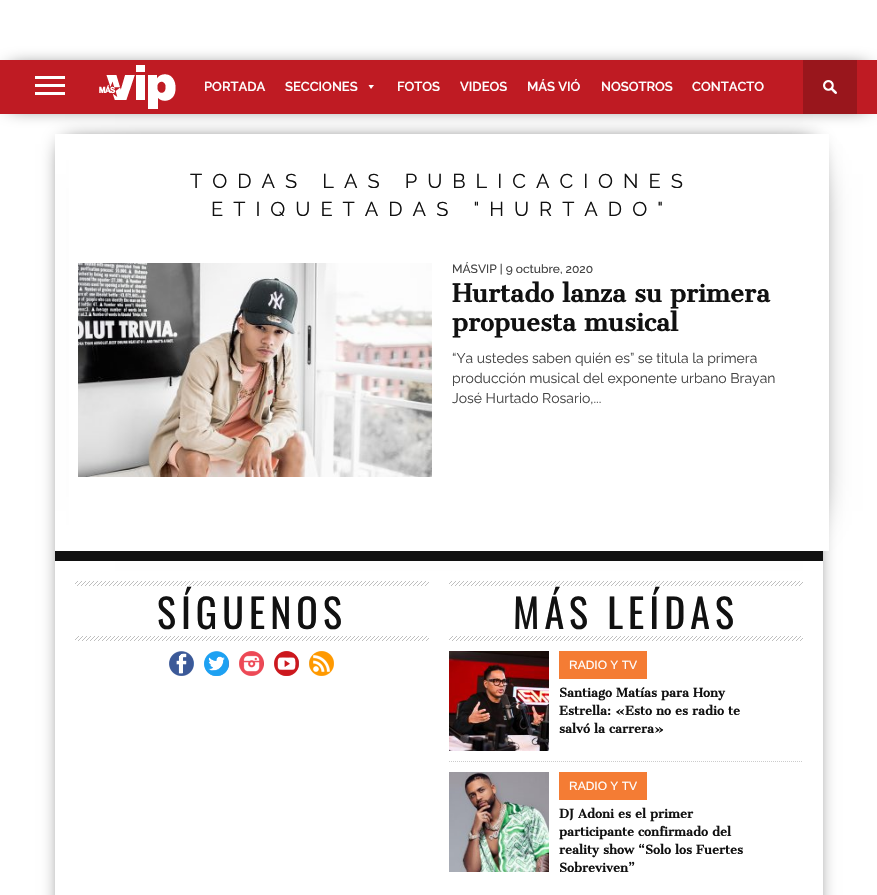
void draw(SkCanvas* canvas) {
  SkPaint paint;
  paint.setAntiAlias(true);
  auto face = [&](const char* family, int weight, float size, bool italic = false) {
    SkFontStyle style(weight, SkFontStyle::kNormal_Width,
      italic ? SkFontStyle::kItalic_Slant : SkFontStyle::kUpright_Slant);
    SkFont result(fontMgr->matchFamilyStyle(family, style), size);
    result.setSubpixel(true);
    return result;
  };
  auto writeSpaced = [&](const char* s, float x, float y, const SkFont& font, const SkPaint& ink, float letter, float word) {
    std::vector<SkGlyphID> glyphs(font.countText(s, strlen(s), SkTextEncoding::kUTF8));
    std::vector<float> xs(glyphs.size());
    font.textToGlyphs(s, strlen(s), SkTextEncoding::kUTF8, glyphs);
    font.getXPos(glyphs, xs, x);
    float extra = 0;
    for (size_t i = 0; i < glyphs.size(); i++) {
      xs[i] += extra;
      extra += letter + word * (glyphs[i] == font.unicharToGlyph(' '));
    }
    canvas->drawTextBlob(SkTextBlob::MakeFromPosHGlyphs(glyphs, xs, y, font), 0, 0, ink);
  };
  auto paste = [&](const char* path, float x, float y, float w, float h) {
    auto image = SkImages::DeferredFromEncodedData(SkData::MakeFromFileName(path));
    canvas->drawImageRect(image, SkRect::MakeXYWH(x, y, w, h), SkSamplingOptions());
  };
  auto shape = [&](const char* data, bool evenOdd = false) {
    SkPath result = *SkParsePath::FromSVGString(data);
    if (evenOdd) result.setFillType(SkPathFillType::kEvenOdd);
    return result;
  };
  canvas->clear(0xffffffff);
  canvas->save();
  canvas->clipPath(shape("M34 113H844V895H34ZM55 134H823V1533H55Z", true), true);
  paint.setColor(0xff000000);
  paint.setMaskFilter(SkMaskFilter::MakeBlur(kNormal_SkBlurStyle, 10));
  canvas->drawRect(SkRect::MakeXYWH(65, 144, 748, 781), paint);
  paint.setMaskFilter(nullptr);
  canvas->restore();
  paint.setMaskFilter(SkMaskFilter::MakeBlur(kNormal_SkBlurStyle, 20));
  canvas->drawRect(SkRect::MakeXYWH(115, 174, 688, 337), paint);
  paint.setMaskFilter(nullptr);
  paint.setColor(0xffffffff);
  canvas->drawRect(SkRect::MakeXYWH(69, 134, 760, 417), paint);
  paint.setColor(0xff000000);
  paint.setMaskFilter(SkMaskFilter::MakeBlur(kNormal_SkBlurStyle, 10));
  canvas->drawRect(SkRect::MakeXYWH(10, 70, 857, 34), paint);
  paint.setMaskFilter(nullptr);
  {
    const struct { float x, y, w, h; SkColor color; } items[] = {
      {0, 60, 877, 54, 0xffbf1b23},
      {35, 76, 30, 3, 0xffffffff},
      {35, 84, 30, 3, 0xffffffff},
      {35, 92, 30, 3, 0xffffffff},
    };
    for (auto [x, y, w, h, color] : items) {
      paint.setColor(color);
      canvas->drawRect(SkRect::MakeXYWH(x, y, w, h), paint);
    }
  }
  paste("img/1.png", 99, 65, 77, 44);
  canvas->drawPath(shape("M374 85L371 89L368.5 85Z"), paint);
  paint.setColor(0xff99161c);
  canvas->drawRect(SkRect::MakeXYWH(803, 60, 54, 54), paint);
  paste("img/2.png", 823, 80, 14, 14);
  paste("img/3.png", 78, 263, 354, 214);
  paint.setColor(0xff111111);
  canvas->drawRect(SkRect::MakeXYWH(55, 551, 768, 10), paint);
  paste("img/4.png", 75, 581, 354, 60);
  paint.setColor(0xffffffff);
  canvas->drawRect(SkRect::MakeXYWH(75, 586, 354, 50), paint);
  paste("img/5.png", 169, 651, 25, 25);
  paste("img/6.png", 204, 651, 25, 25);
  paste("img/7.png", 239, 651, 25, 25);
  paste("img/8.png", 274, 651, 25, 25);
  paste("img/9.png", 309, 651, 25, 25);
  paste("img/4.png", 449, 581, 354, 60);
  canvas->drawRect(SkRect::MakeXYWH(449, 586, 354, 50), paint);
  paste("img/10.png", 449, 651, 100, 100);
  paint.setColor(0xfff47c34);
  canvas->drawRect(SkRect::MakeXYWH(559, 651, 88, 28), paint);
  paint.setStroke(true);
  paint.setStrokeWidth(1);
  paint.setColor(0xffcccccc);
  paint.setPathEffect(SkDashPathEffect::Make({{1, 1}}, 0));
  canvas->drawPath(shape("M449 761.5H803"), paint);
  paint.setPathEffect(nullptr);
  paste("img/11.png", 449, 772, 100, 100);
  paint.setStroke(false);
  paint.setColor(0xfff47c34);
  canvas->drawRect(SkRect::MakeXYWH(559, 772, 88, 28), paint);
  auto f0 = face("Raleway", 600, 13);
  paint.setColor(0xffffffff);
  {
    const struct { const char* s; float x, y; } items[] = {
      {"PORTADA", 204, 91},
      {"SECCIONES", 285, 91},
      {"FOTOS", 397, 91},
      {"VIDEOS", 460, 91},
      {"MÁS VIÓ", 527, 91},
      {"NOSOTROS", 601, 91},
      {"CONTACTO", 692, 91},
    };
    for (auto [s, x, y] : items) {
      canvas->drawString(s, x, y, f0, paint);
    }
  }
  auto f1 = face("Raleway", 400, 20);
  paint.setColor(0xff111111);
  writeSpaced("TODAS LAS PUBLICACIONES", 190, 188, f1, paint, 10, 0);
  writeSpaced("ETIQUETADAS \"HURTADO\"", 211, 216, f1, paint, 10, 0);
  auto f2 = face("Raleway", 500, 12);
  paint.setColor(0xff444444);
  canvas->drawString("MÁSVIP | 9 octubre, 2020", 452, 273, f2, paint);
  auto f3 = face("Cantata One", 700, 24);
  paint.setColor(0xff111111);
  canvas->drawString("Hurtado lanza su primera", 452, 302, f3, paint);
  canvas->drawString("propuesta musical", 452, 331, f3, paint);
  auto f4 = face("Raleway", 400, 14);
  paint.setColor(0xff444444);
  {
    const struct { const char* s; float x, y; } items[] = {
      {"“Ya ustedes saben quién es” se titula la primera", 452, 363},
      {"producción musical del exponente urbano Brayan", 452, 383},
      {"José Hurtado Rosario,...", 452, 403},
    };
    for (auto [s, x, y] : items) {
      canvas->drawString(s, x, y, f4, paint);
    }
  }
  auto f5 = face("Oswald", 400, 40);
  paint.setColor(0xff111111);
  writeSpaced("SÍGUENOS", 157, 629, f5, paint, 5, 0);
  writeSpaced("MÁS LEÍDAS", 513, 629, f5, paint, 5, 0);
  auto f6 = face("Liberation Sans", 400, 12);
  paint.setColor(0xffffffff);
  canvas->drawString("RADIO Y TV", 569, 669, f6, paint);
  auto f7 = face("Cantata One", 700, 12);
  paint.setColor(0xff111111);
  {
    const struct { const char* s; float x, y; } items[] = {
      {"Santiago Matías para Hony", 559, 697},
      {"Estrella: «Esto no es radio te", 559, 715},
      {"salvó la carrera»", 559, 733},
    };
    for (auto [s, x, y] : items) {
      canvas->drawString(s, x, y, f7, paint);
    }
  }
  paint.setColor(0xffffffff);
  canvas->drawString("RADIO Y TV", 569, 790, f6, paint);
  paint.setColor(0xff111111);
  {
    const struct { const char* s; float x, y; } items[] = {
      {"DJ Adoni es el primer", 559, 818},
      {"participante confirmado del", 559, 836},
      {"reality show “Solo los Fuertes", 559, 854},
      {"Sobreviven”", 559, 872},
    };
    for (auto [s, x, y] : items) {
      canvas->drawString(s, x, y, f7, paint);
    }
  }
}
